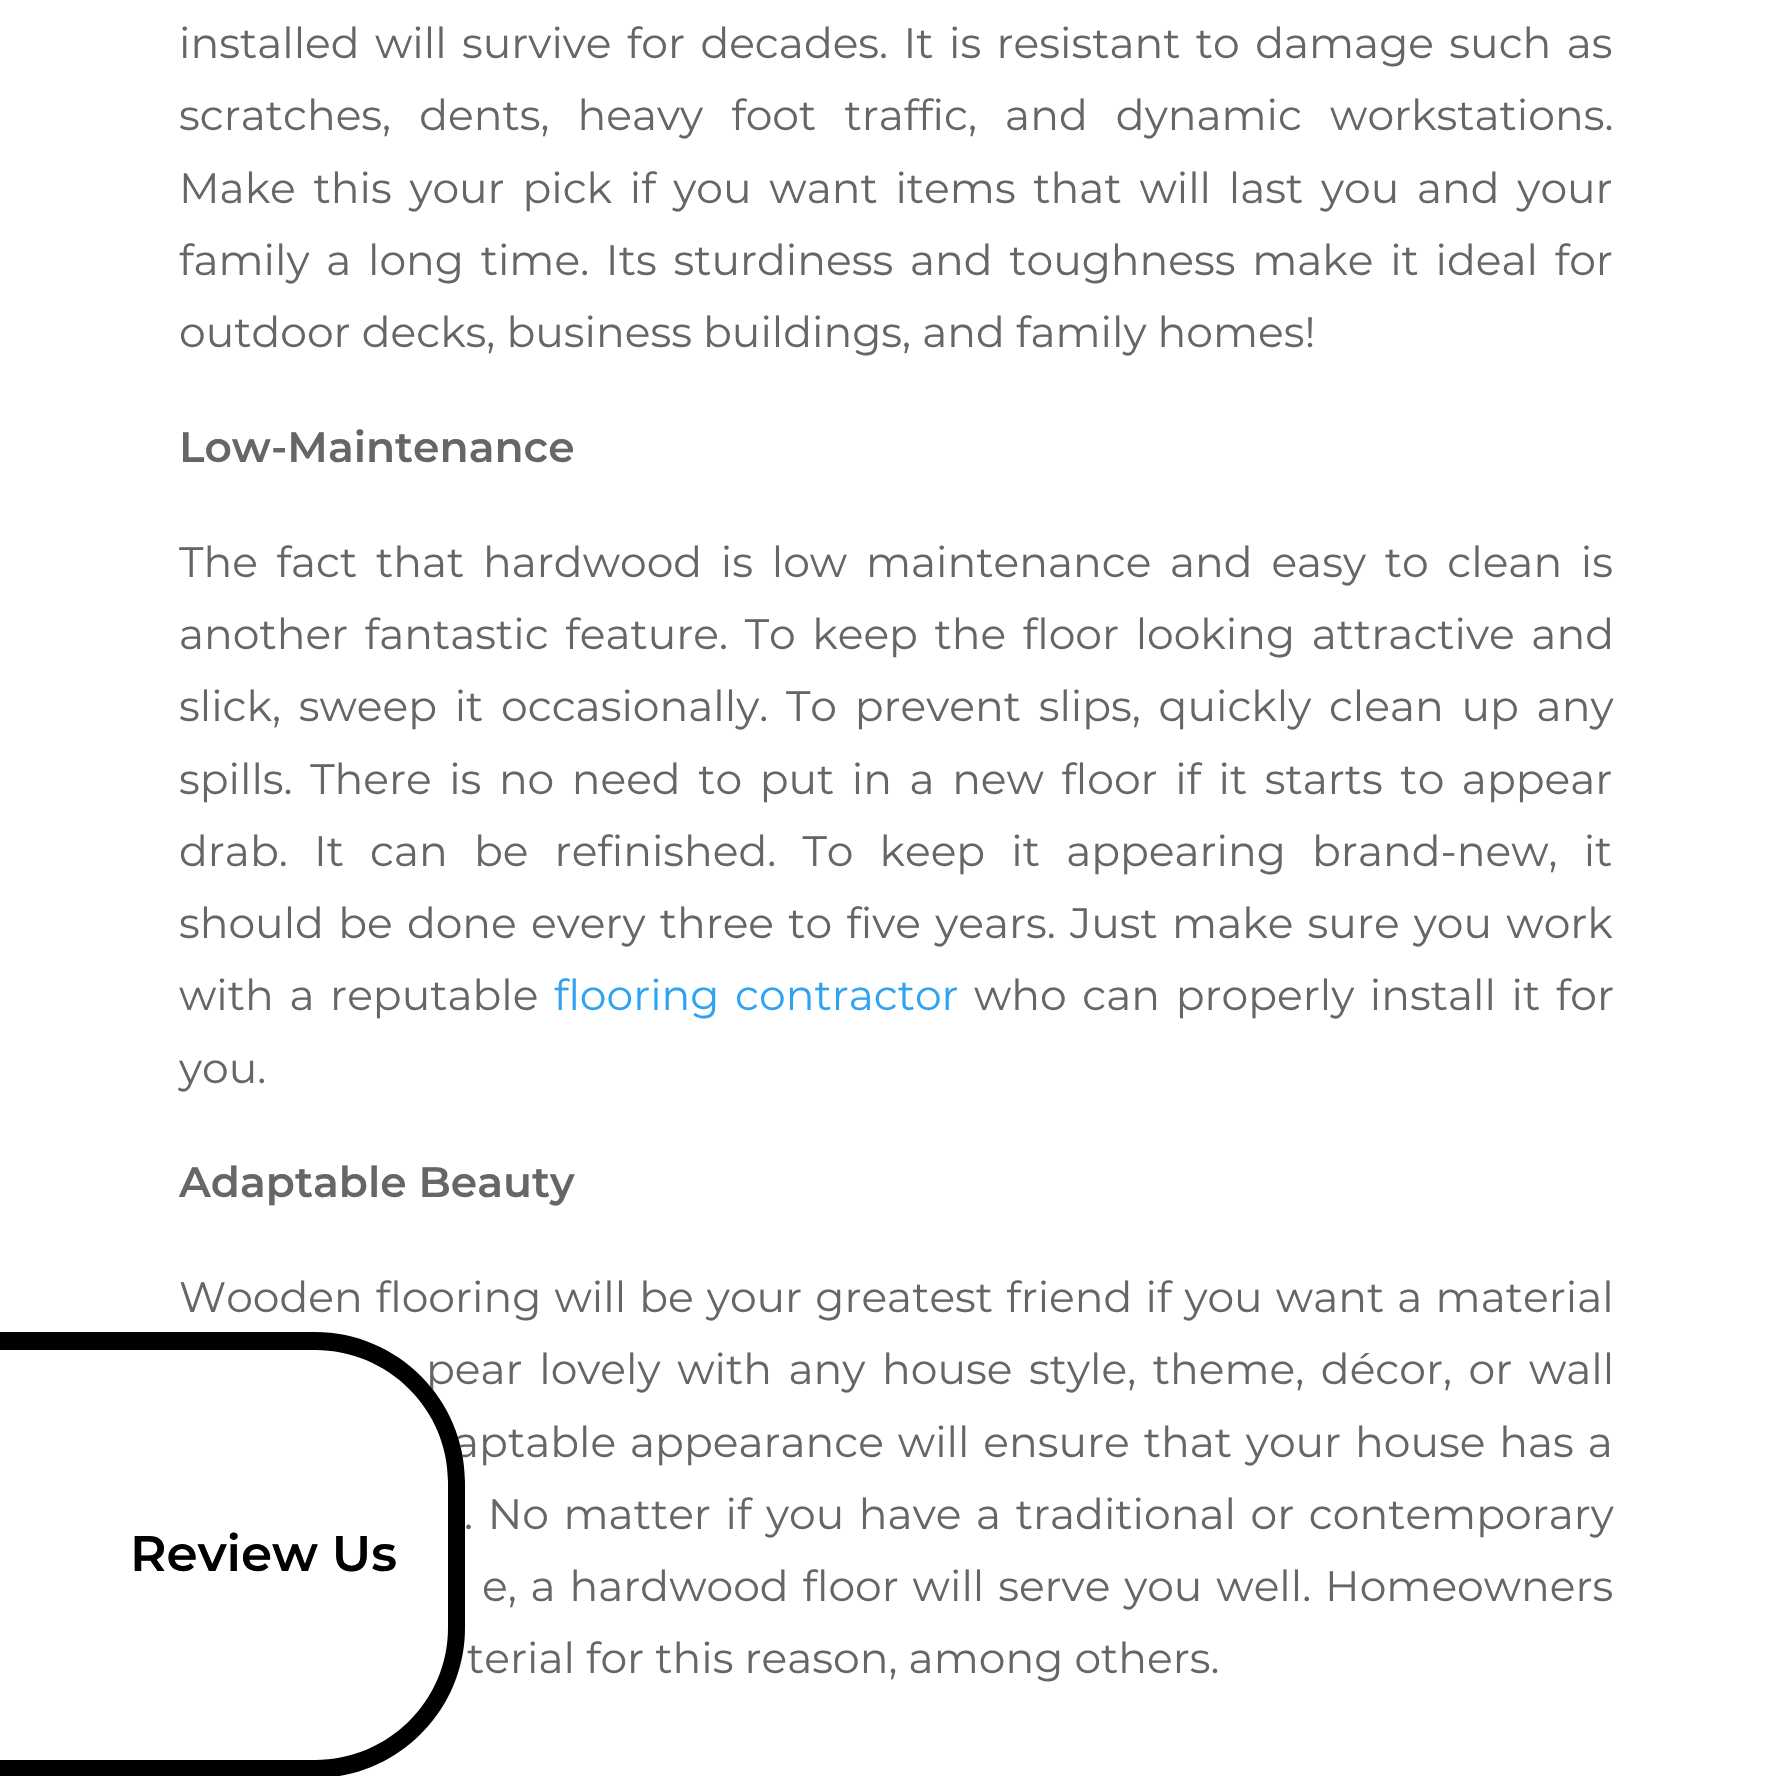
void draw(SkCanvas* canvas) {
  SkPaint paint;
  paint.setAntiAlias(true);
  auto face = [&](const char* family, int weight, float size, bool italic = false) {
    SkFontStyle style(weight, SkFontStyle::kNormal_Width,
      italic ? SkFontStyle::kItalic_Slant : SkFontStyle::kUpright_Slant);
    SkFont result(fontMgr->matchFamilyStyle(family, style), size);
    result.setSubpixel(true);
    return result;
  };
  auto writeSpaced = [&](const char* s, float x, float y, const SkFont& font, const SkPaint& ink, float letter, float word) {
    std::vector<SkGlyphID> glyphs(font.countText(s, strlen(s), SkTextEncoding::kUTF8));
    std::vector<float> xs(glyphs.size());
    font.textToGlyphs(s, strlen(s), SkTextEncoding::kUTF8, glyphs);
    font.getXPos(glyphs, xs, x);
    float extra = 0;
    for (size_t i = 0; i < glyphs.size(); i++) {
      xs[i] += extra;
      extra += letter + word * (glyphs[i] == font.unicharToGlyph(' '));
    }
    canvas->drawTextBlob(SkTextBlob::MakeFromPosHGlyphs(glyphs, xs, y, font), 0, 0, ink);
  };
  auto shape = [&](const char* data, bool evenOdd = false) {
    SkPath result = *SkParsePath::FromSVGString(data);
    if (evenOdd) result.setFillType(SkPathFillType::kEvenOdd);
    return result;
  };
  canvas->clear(0xffffffff);
  auto f0 = face("Montserrat", 400, 42.5f);
  paint.setColor(0xff666666);
  writeSpaced("installed will survive for decades. It is resistant to damage such as", 179, 58, f0, paint, 0, 4.25f);
  writeSpaced("scratches, dents, heavy foot traffic, and dynamic workstations.", 179, 130, f0, paint, 0, 17);
  writeSpaced("Make this your pick if you want items that will last you and your", 179, 203, f0, paint, 0, 6.6f);
  writeSpaced("family a long time. Its sturdiness and toughness make it ideal for", 179, 275, f0, paint, 0, 5.6f);
  canvas->drawString("outdoor decks, business buildings, and family homes!", 179, 347, f0, paint);
  auto f1 = face("Montserrat", 600, 42.5f);
  canvas->drawString("Low-Maintenance", 179, 462, f1, paint);
  writeSpaced("The fact that hardwood is low maintenance and easy to clean is", 179, 577, f0, paint, 0, 7.6f);
  writeSpaced("another fantastic feature. To keep the floor looking attractive and", 179, 649, f0, paint, 0, 5.5f);
  writeSpaced("slick, sweep it occasionally. To prevent slips, quickly clean up any", 179, 721, f0, paint, 0, 6.6f);
  writeSpaced("spills. There is no need to put in a new floor if it starts to appear", 179, 794, f0, paint, 0, 6.4f);
  writeSpaced("drab. It can be refinished. To keep it appearing brand-new, it", 179, 866, f0, paint, 0, 15);
  writeSpaced("should be done every three to five years. Just make sure you work", 179, 938, f0, paint, 0, 3.1f);
  writeSpaced("with a reputable", 179, 1010, f0, paint, 0, 4.5f);
  paint.setColor(0xff2ea3f2);
  writeSpaced("flooring contractor", 554, 1010, f0, paint, 0, 4.5f);
  paint.setColor(0xff666666);
  writeSpaced("who can properly install it for", 974, 1010, f0, paint, 0, 4.5f);
  canvas->drawString("you.", 179, 1083, f0, paint);
  canvas->drawString("Adaptable Beauty", 179, 1197, f1, paint);
  writeSpaced("Wooden flooring will be your greatest friend if you want a material", 179, 1312, f0, paint, 0, 2);
  writeSpaced("pear lovely with any house style, theme, décor, or wall", 426, 1384, f0, paint, 0, 5.5f);
  writeSpaced("aptable appearance will ensure that your house has a", 454, 1457, f0, paint, 0, 2.75f);
  writeSpaced(". No matter if you have a traditional or contemporary", 464, 1529, f0, paint, 0, 3.5f);
  writeSpaced("e, a hardwood floor will serve you well. Homeowners", 482, 1601, f0, paint, 0, 2.75f);
  canvas->drawString("terial for this reason, among others.", 467, 1673, f0, paint);
  paint.setColor(0xffffffff);
  canvas->drawPath(shape("M0 1333H315C398 1333 465 1400 465 1483V1628C465 1711 398 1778 315 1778H0Z"), paint);
  paint.setColor(0xff000000);
  canvas->drawPath(shape("M0 1332H315C398 1332 465 1400 465 1482V1628C465 1710 398 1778 315 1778H0ZM0 1350H315C388 1350 448 1409 448 1482V1628C448 1701 388 1760 315 1760H0Z", true), paint);
  auto f2 = face("Montserrat", 600, 50);
  canvas->drawString("Review Us", 130, 1571, f2, paint);
}
